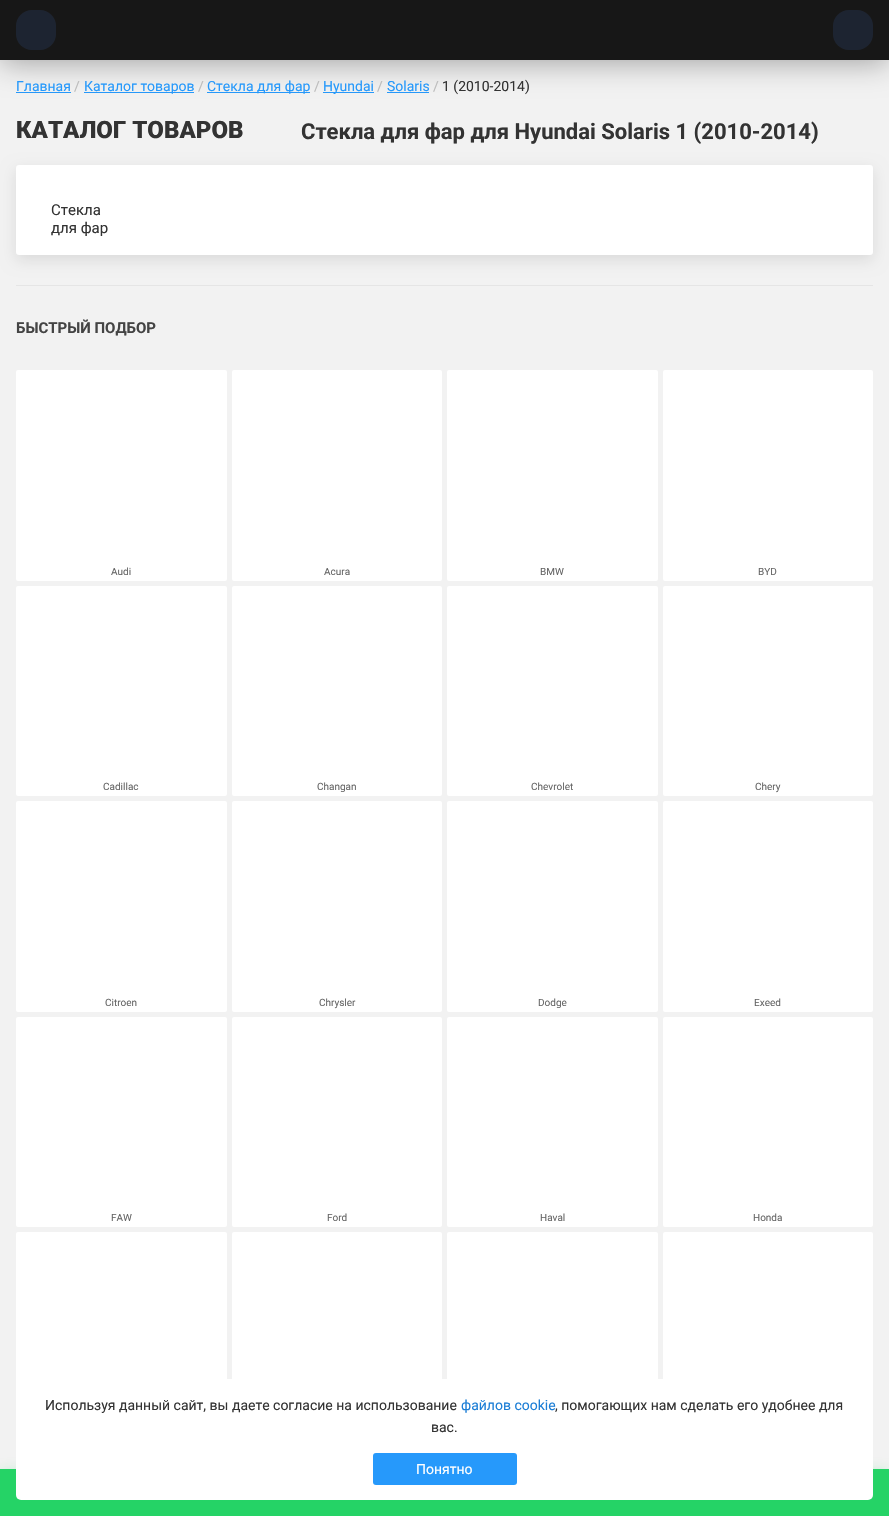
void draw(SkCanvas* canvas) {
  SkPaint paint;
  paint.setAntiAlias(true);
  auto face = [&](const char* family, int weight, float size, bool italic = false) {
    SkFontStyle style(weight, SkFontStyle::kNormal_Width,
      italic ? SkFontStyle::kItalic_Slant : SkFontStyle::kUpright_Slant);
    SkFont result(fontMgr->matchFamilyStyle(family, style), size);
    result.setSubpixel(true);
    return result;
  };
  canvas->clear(0xfff2f2f2);
  {
    const struct { float x, y, w, h; SkColor color; } items[] = {
      {16, 92, 55, 1, 0xff2699fb},
      {84, 92, 110, 1, 0xff2699fb},
      {207, 92, 103, 1, 0xff2699fb},
      {323, 92, 51, 1, 0xff2699fb},
      {387, 92, 42, 1, 0xff2699fb},
    };
    for (auto [x, y, w, h, color] : items) {
      paint.setColor(color);
      canvas->drawRect(SkRect::MakeXYWH(x, y, w, h), paint);
    }
  }
  paint.setColor(0x54000000);
  paint.setMaskFilter(SkMaskFilter::MakeBlur(kNormal_SkBlurStyle, 15));
  canvas->drawRect(SkRect::MakeXYWH(0, 3, 889, 60), paint);
  paint.setMaskFilter(nullptr);
  paint.setColor(0xff171717);
  canvas->drawRect(SkRect::MakeXYWH(0, 0, 889, 60), paint);
  paint.setColor(0xff1d2431);
  canvas->drawRoundRect(SkRect::MakeXYWH(16, 10, 40, 40), 16, 16, paint);
  canvas->drawRoundRect(SkRect::MakeXYWH(833, 10, 40, 40), 16, 16, paint);
  paint.setColor(0x1a000000);
  paint.setMaskFilter(SkMaskFilter::MakeBlur(kNormal_SkBlurStyle, 7.5f));
  canvas->drawRoundRect(SkRect::MakeXYWH(16, 170, 857, 90), 3, 3, paint);
  paint.setMaskFilter(nullptr);
  paint.setColor(0xffffffff);
  canvas->drawRoundRect(SkRect::MakeXYWH(16, 165, 857, 90), 3, 3, paint);
  paint.setColor(0xffe5e5e5);
  canvas->drawRect(SkRect::MakeXYWH(16, 285, 857, 1), paint);
  paint.setColor(0xffffffff);
  canvas->drawRoundRect(SkRect::MakeXYWH(16, 370, 211, 211), 2, 2, paint);
  canvas->drawRoundRect(SkRect::MakeXYWH(232, 370, 210, 211), 2, 2, paint);
  canvas->drawRoundRect(SkRect::MakeXYWH(447, 370, 211, 211), 2, 2, paint);
  canvas->drawRoundRect(SkRect::MakeXYWH(663, 370, 210, 211), 2, 2, paint);
  canvas->drawRoundRect(SkRect::MakeXYWH(16, 586, 211, 210), 2, 2, paint);
  canvas->drawRoundRect(SkRect::MakeXYWH(232, 586, 210, 210), 2, 2, paint);
  canvas->drawRoundRect(SkRect::MakeXYWH(447, 586, 211, 210), 2, 2, paint);
  canvas->drawRoundRect(SkRect::MakeXYWH(663, 586, 210, 210), 2, 2, paint);
  canvas->drawRoundRect(SkRect::MakeXYWH(16, 801, 211, 211), 2, 2, paint);
  canvas->drawRoundRect(SkRect::MakeXYWH(232, 801, 210, 211), 2, 2, paint);
  canvas->drawRoundRect(SkRect::MakeXYWH(447, 801, 211, 211), 2, 2, paint);
  canvas->drawRoundRect(SkRect::MakeXYWH(663, 801, 210, 211), 2, 2, paint);
  canvas->drawRoundRect(SkRect::MakeXYWH(16, 1017, 211, 210), 2, 2, paint);
  canvas->drawRoundRect(SkRect::MakeXYWH(232, 1017, 210, 210), 2, 2, paint);
  canvas->drawRoundRect(SkRect::MakeXYWH(447, 1017, 211, 210), 2, 2, paint);
  canvas->drawRoundRect(SkRect::MakeXYWH(663, 1017, 210, 210), 2, 2, paint);
  canvas->drawRoundRect(SkRect::MakeXYWH(16, 1232, 211, 211), 2, 2, paint);
  canvas->drawRoundRect(SkRect::MakeXYWH(232, 1232, 210, 211), 2, 2, paint);
  canvas->drawRoundRect(SkRect::MakeXYWH(447, 1232, 211, 211), 2, 2, paint);
  canvas->drawRoundRect(SkRect::MakeXYWH(663, 1232, 210, 211), 2, 2, paint);
  paint.setColor(0x6626d165);
  paint.setMaskFilter(SkMaskFilter::MakeBlur(kNormal_SkBlurStyle, 7.5f));
  canvas->drawRect(SkRect::MakeXYWH(0, 1474, 889, 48), paint);
  paint.setMaskFilter(nullptr);
  paint.setColor(0xff25d366);
  canvas->drawRect(SkRect::MakeXYWH(0, 1469, 889, 47), paint);
  paint.setColor(0xffffffff);
  canvas->drawRoundRect(SkRect::MakeXYWH(16, 1379, 857, 121), 5, 5, paint);
  paint.setColor(0xff2699fb);
  canvas->drawRoundRect(SkRect::MakeXYWH(373, 1453, 144, 32), 3, 3, paint);
  auto f0 = face("Roboto", 400, 14);
  canvas->drawString("Главная", 16, 91, f0, paint);
  paint.setColor(0xffbcbcbc);
  canvas->drawString("/", 74, 91, f0, paint);
  paint.setColor(0xff2699fb);
  canvas->drawString("Каталог товаров", 84, 91, f0, paint);
  paint.setColor(0xffbcbcbc);
  canvas->drawString("/", 198, 91, f0, paint);
  paint.setColor(0xff2699fb);
  canvas->drawString("Стекла для фар", 207, 91, f0, paint);
  paint.setColor(0xffbcbcbc);
  canvas->drawString("/", 314, 91, f0, paint);
  paint.setColor(0xff2699fb);
  canvas->drawString("Hyundai", 323, 91, f0, paint);
  paint.setColor(0xffbcbcbc);
  canvas->drawString("/", 377, 91, f0, paint);
  paint.setColor(0xff2699fb);
  canvas->drawString("Solaris", 387, 91, f0, paint);
  paint.setColor(0xffbcbcbc);
  canvas->drawString("/", 433, 91, f0, paint);
  paint.setColor(0xff333333);
  canvas->drawString("1 (2010-2014)", 442, 91, f0, paint);
  auto f1 = face("Roboto", 900, 24);
  canvas->drawString("КАТАЛОГ ТОВАРОВ", 16, 138, f1, paint);
  auto f2 = face("Roboto", 700, 22);
  canvas->drawString("Стекла для фар для Hyundai Solaris 1 (2010-2014)", 301, 139, f2, paint);
  auto f3 = face("Roboto", 400, 15);
  canvas->drawString("Стекла", 51, 215, f3, paint);
  canvas->drawString("для фар", 51, 233, f3, paint);
  auto f4 = face("Roboto", 700, 15);
  paint.setColor(0xff444444);
  canvas->drawString("БЫСТРЫЙ ПОДБОР", 16, 333, f4, paint);
  auto f5 = face("Roboto", 400, 10);
  paint.setColor(0xff666666);
  {
    const struct { const char* s; float x, y; } items[] = {
      {"Audi", 111, 575},
      {"Acura", 324, 575},
      {"BMW", 540, 575},
      {"BYD", 758, 575},
      {"Cadillac", 103, 790},
      {"Changan", 317, 790},
      {"Chevrolet", 531, 790},
      {"Chery", 755, 790},
      {"Citroen", 105, 1006},
      {"Chrysler", 319, 1006},
      {"Dodge", 538, 1006},
      {"Exeed", 754, 1006},
      {"FAW", 111, 1221},
      {"Ford", 327, 1221},
      {"Haval", 540, 1221},
      {"Honda", 753, 1221},
    };
    for (auto [s, x, y] : items) {
      canvas->drawString(s, x, y, f5, paint);
    }
  }
  paint.setColor(0xff333333);
  canvas->drawString("Используя данный сайт, вы даете согласие на использование", 45, 1410, f0, paint);
  paint.setColor(0xff1c7ed6);
  canvas->drawString("файлов cookie", 461, 1410, f0, paint);
  paint.setColor(0xff333333);
  canvas->drawString(", помогающих нам сделать его удобнее для", 555, 1410, f0, paint);
  canvas->drawString("вас.", 431, 1432, f0, paint);
  paint.setColor(0xffffffff);
  canvas->drawString("Понятно", 416, 1474, f0, paint);
}
